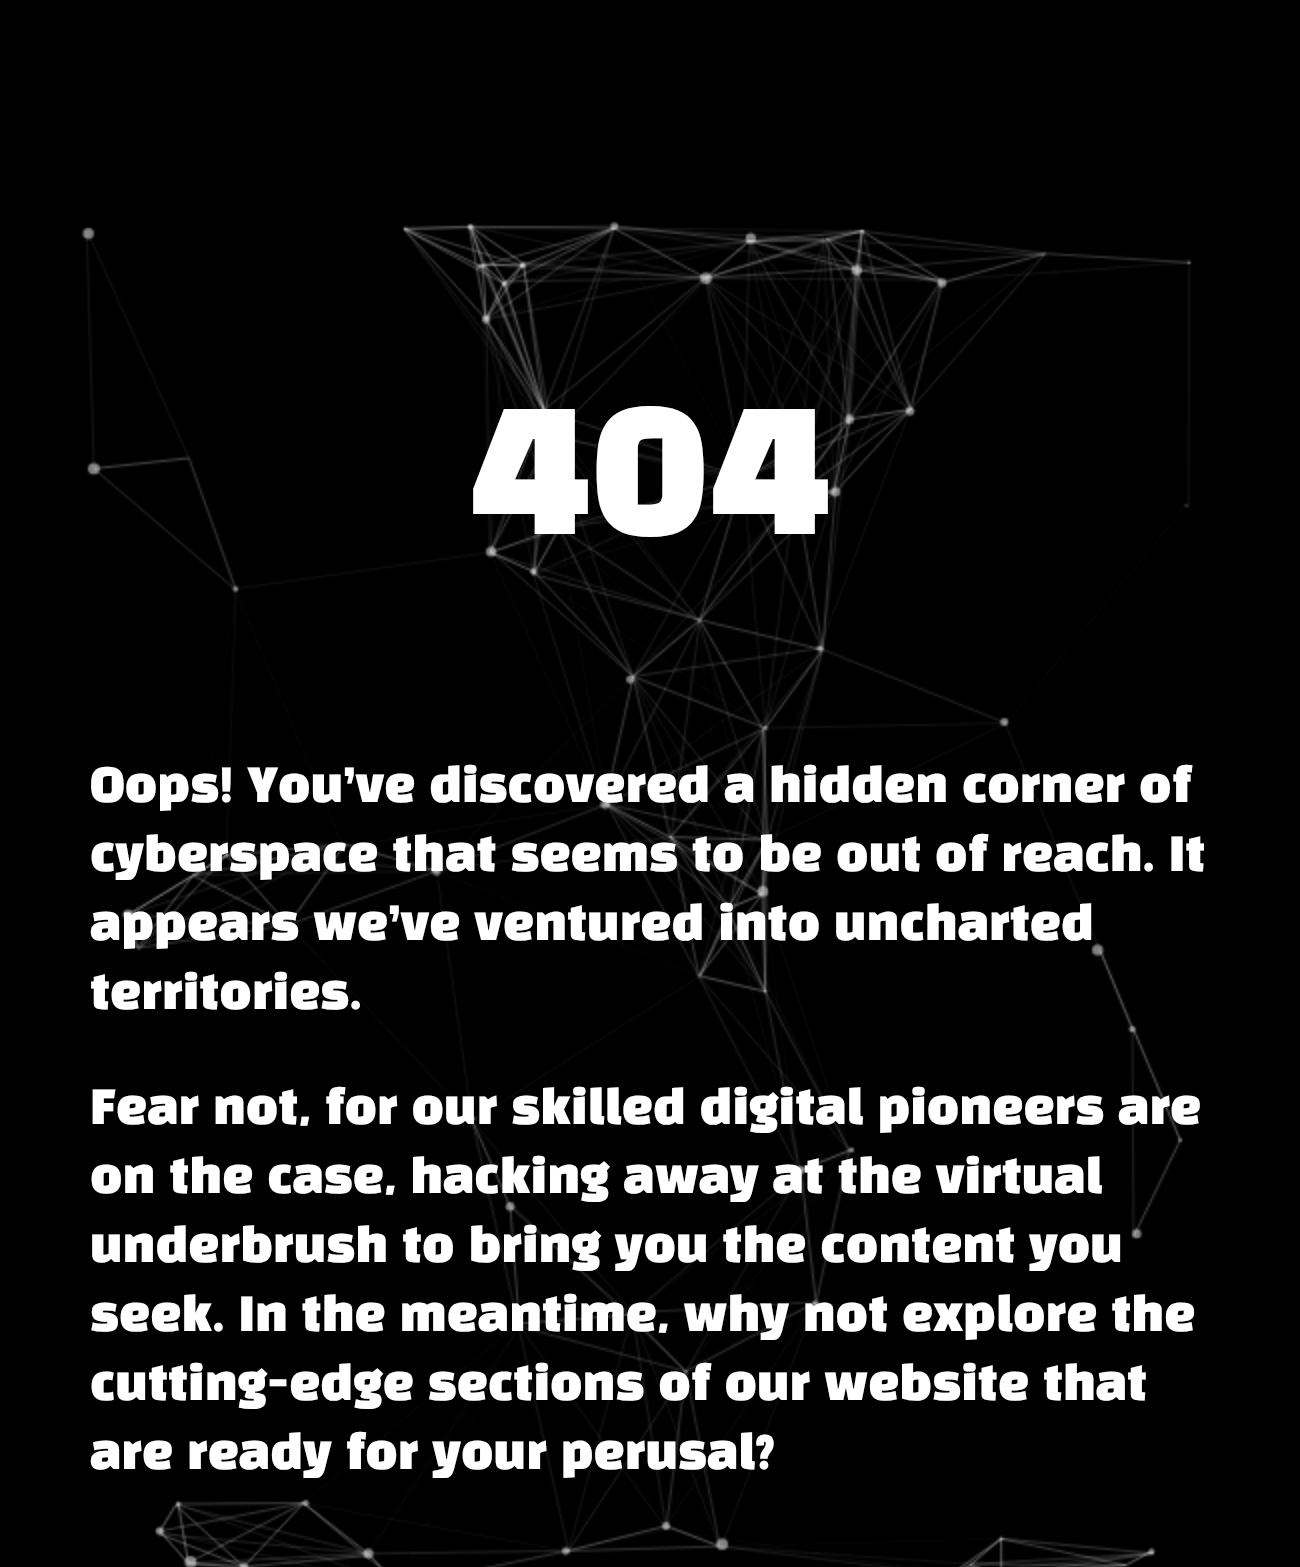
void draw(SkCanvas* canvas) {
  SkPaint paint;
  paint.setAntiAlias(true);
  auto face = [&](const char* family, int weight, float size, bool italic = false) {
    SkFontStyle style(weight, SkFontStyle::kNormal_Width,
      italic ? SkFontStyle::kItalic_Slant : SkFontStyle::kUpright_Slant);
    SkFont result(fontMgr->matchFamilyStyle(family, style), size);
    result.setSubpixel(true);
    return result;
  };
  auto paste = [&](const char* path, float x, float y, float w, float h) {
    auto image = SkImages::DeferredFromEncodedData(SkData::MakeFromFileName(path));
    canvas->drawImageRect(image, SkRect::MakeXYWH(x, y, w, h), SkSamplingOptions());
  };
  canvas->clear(0xff000000);
  auto f0 = face("Black Han Sans", 400, 200);
  paint.setColor(0xffffffff);
  canvas->drawString("404", 470, 534, f0, paint);
  auto f1 = face("Black Han Sans", 400, 46);
  {
    const struct { const char* s; float x, y; } items[] = {
      {"Oops! You’ve discovered a hidden corner of", 90, 802},
      {"cyberspace that seems to be out of reach. It", 90, 871},
      {"appears we’ve ventured into uncharted", 90, 940},
      {"territories.", 90, 1009},
      {"Fear not, for our skilled digital pioneers are", 90, 1124},
      {"on the case, hacking away at the virtual", 90, 1193},
      {"underbrush to bring you the content you", 90, 1262},
      {"seek. In the meantime, why not explore the", 90, 1331},
      {"cutting-edge sections of our website that", 90, 1400},
      {"are ready for your perusal?", 90, 1469},
    };
    for (auto [s, x, y] : items) {
      canvas->drawString(s, x, y, f1, paint);
    }
  }
  paste("img/1.png", 81, 221, 1112, 1346);
}
